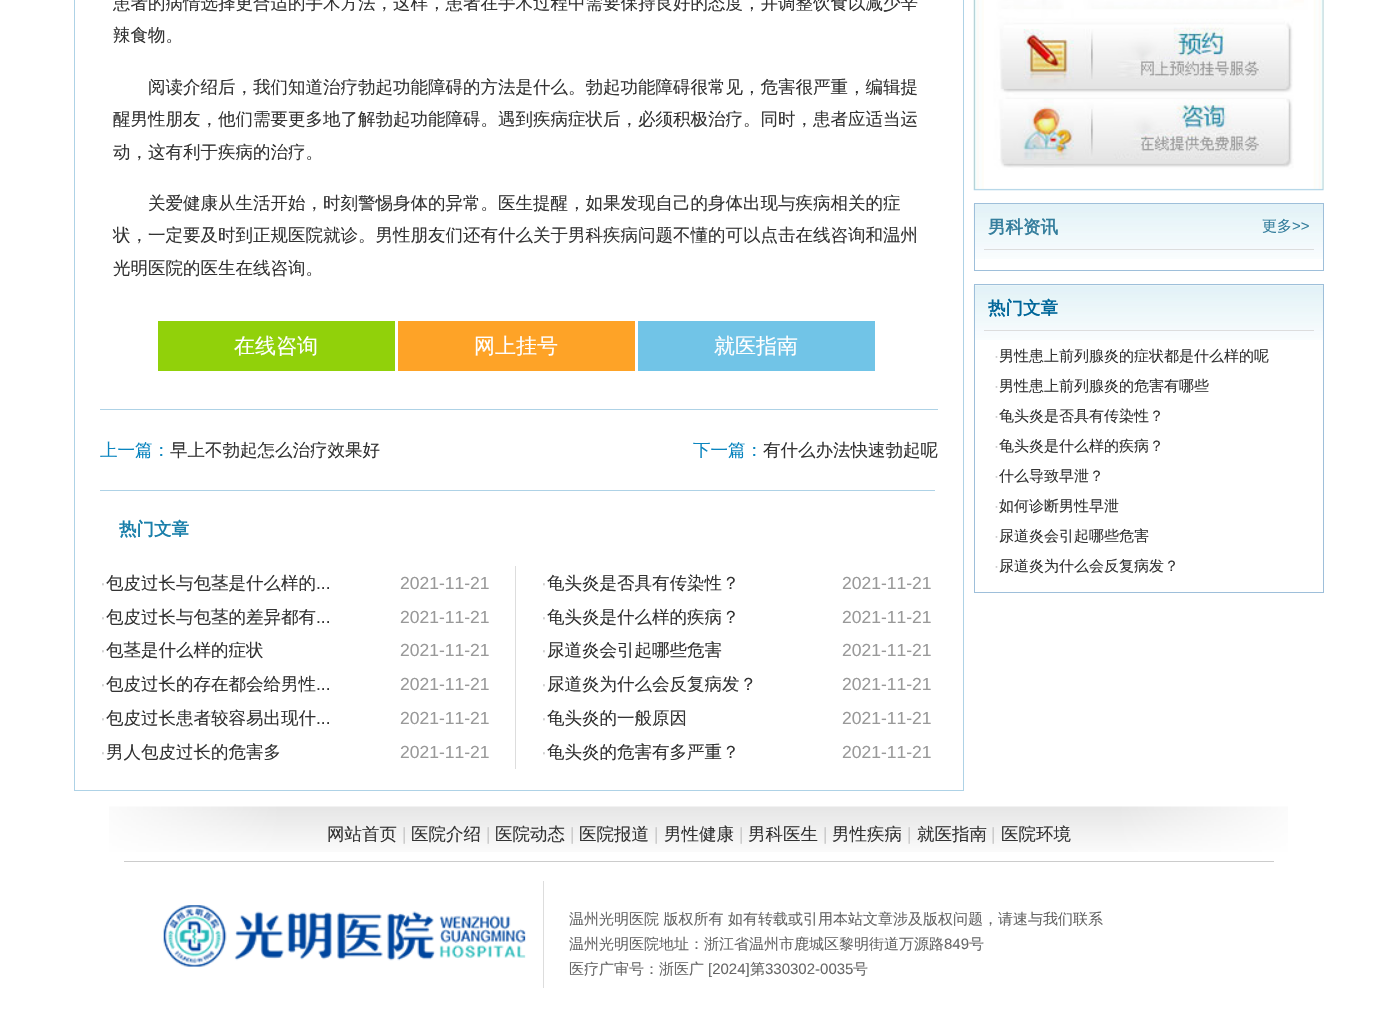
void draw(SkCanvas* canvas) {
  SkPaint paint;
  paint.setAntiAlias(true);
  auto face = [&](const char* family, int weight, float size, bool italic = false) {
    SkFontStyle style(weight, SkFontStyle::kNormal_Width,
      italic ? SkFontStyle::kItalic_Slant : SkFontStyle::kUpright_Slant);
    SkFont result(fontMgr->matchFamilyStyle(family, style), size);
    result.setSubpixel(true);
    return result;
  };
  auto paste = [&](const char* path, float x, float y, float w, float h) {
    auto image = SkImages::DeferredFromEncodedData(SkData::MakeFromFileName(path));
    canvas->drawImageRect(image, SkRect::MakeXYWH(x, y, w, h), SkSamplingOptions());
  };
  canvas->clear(0xffffffff);
  paint.setStroke(true);
  paint.setStrokeWidth(1);
  paint.setColor(0xffaed2e6);
  canvas->drawRect(SkRect::MakeXYWH(74.5f, -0.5f, 889, 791), paint);
  paint.setStroke(false);
  {
    const struct { float x, y, w, h; SkColor color; } items[] = {
      {158, 321, 237, 50, 0xff91d10a},
      {398, 321, 237, 50, 0xfffea327},
      {638, 321, 237, 50, 0xff71c4e7},
      {100, 409, 838, 1, 0xffaed2e6},
      {100, 490, 835, 1, 0xffaed2e6},
      {515, 566, 1, 203, 0xffdddddd},
    };
    for (auto [x, y, w, h, color] : items) {
      paint.setColor(color);
      canvas->drawRect(SkRect::MakeXYWH(x, y, w, h), paint);
    }
  }
  paste("img/1.png", 973, 0, 351, 191);
  paste("img/2.png", 973, 204, 350, 55);
  paint.setStroke(true);
  paint.setColor(0xff9ebfda);
  canvas->drawRect(SkRect::MakeXYWH(974.5f, 203.5f, 349, 67), paint);
  paint.setStroke(false);
  paint.setColor(0xffdddddd);
  canvas->drawRect(SkRect::MakeXYWH(984, 249, 330, 1), paint);
  paste("img/3.png", 973, 285, 350, 55);
  paint.setStroke(true);
  paint.setColor(0xff9ebfda);
  canvas->drawRect(SkRect::MakeXYWH(974.5f, 284.5f, 349, 308), paint);
  paint.setStroke(false);
  paint.setColor(0xffdddddd);
  canvas->drawRect(SkRect::MakeXYWH(984, 330, 330, 1), paint);
  paste("img/4.png", 109, 806, 1179, 46);
  paint.setColor(0xffcccccc);
  canvas->drawRect(SkRect::MakeXYWH(124, 861, 1150, 1), paint);
  paste("img/5.png", 163, 905, 363, 62);
  paint.setColor(0xffdddddd);
  canvas->drawRect(SkRect::MakeXYWH(543, 881, 1, 107), paint);
  auto f0 = face("WenQuanYi Zen Hei", 500, 17.5f);
  paint.setColor(0xff333333);
  {
    const struct { const char* s; float x, y; } items[] = {
      {"患者的病情选择更合适的手术方法，这样，患者在手术过程中需要保持良好的态度，并调整饮食以减少辛", 113, 9},
      {"辣食物。", 113, 41},
      {"阅读介绍后，我们知道治疗勃起功能障碍的方法是什么。勃起功能障碍很常见，危害很严重，编辑提", 148, 93},
      {"醒男性朋友，他们需要更多地了解勃起功能障碍。遇到疾病症状后，必须积极治疗。同时，患者应适当运", 113, 125},
      {"动，这有利于疾病的治疗。", 113, 158},
      {"关爱健康从生活开始，时刻警惕身体的异常。医生提醒，如果发现自己的身体出现与疾病相关的症", 148, 209},
      {"状，一定要及时到正规医院就诊。男性朋友们还有什么关于男科疾病问题不懂的可以点击在线咨询和温州", 113, 241},
      {"光明医院的医生在线咨询。", 113, 274},
    };
    for (auto [s, x, y] : items) {
      canvas->drawString(s, x, y, f0, paint);
    }
  }
  auto f1 = face("WenQuanYi Zen Hei", 500, 21);
  paint.setColor(0xffffffff);
  {
    const struct { const char* s; float x, y; } items[] = {
      {"在线咨询", 234, 353},
      {"网上挂号", 474, 353},
      {"就医指南", 714, 353},
    };
    for (auto [s, x, y] : items) {
      canvas->drawString(s, x, y, f1, paint);
    }
  }
  paint.setColor(0xff0a85bf);
  canvas->drawString("上一篇：", 100, 456, f0, paint);
  paint.setColor(0xff333333);
  canvas->drawString("早上不勃起怎么治疗效果好", 170, 456, f0, paint);
  paint.setColor(0xff0a85bf);
  canvas->drawString("下一篇：", 693, 456, f0, paint);
  paint.setColor(0xff333333);
  canvas->drawString("有什么办法快速勃起呢", 763, 456, f0, paint);
  auto f2 = face("WenQuanYi Zen Hei", 700, 17.5f);
  paint.setColor(0xff1a7faa);
  canvas->drawString("热门文章", 119, 535, f2, paint);
  auto f3 = face("Liberation Sans", 400, 17.5f);
  paint.setColor(0xffcccccc);
  canvas->drawString("·", 100, 589, f3, paint);
  paint.setColor(0xff333333);
  canvas->drawString("包皮过长与包茎是什么样的", 106, 589, f0, paint);
  paint.setColor(0xff999999);
  canvas->drawString("2021-11-21", 400, 589, f3, paint);
  paint.setColor(0xff333333);
  canvas->drawString("...", 316, 589, f3, paint);
  paint.setColor(0xffcccccc);
  canvas->drawString("·", 100, 623, f3, paint);
  paint.setColor(0xff333333);
  canvas->drawString("包皮过长与包茎的差异都有", 106, 623, f0, paint);
  paint.setColor(0xff999999);
  canvas->drawString("2021-11-21", 400, 623, f3, paint);
  paint.setColor(0xff333333);
  canvas->drawString("...", 316, 623, f3, paint);
  paint.setColor(0xffcccccc);
  canvas->drawString("·", 100, 656, f3, paint);
  paint.setColor(0xff333333);
  canvas->drawString("包茎是什么样的症状", 106, 656, f0, paint);
  paint.setColor(0xff999999);
  canvas->drawString("2021-11-21", 400, 656, f3, paint);
  paint.setColor(0xffcccccc);
  canvas->drawString("·", 100, 690, f3, paint);
  paint.setColor(0xff333333);
  canvas->drawString("包皮过长的存在都会给男性", 106, 690, f0, paint);
  paint.setColor(0xff999999);
  canvas->drawString("2021-11-21", 400, 690, f3, paint);
  paint.setColor(0xff333333);
  canvas->drawString("...", 316, 690, f3, paint);
  paint.setColor(0xffcccccc);
  canvas->drawString("·", 100, 724, f3, paint);
  paint.setColor(0xff333333);
  canvas->drawString("包皮过长患者较容易出现什", 106, 724, f0, paint);
  paint.setColor(0xff999999);
  canvas->drawString("2021-11-21", 400, 724, f3, paint);
  paint.setColor(0xff333333);
  canvas->drawString("...", 316, 724, f3, paint);
  paint.setColor(0xffcccccc);
  canvas->drawString("·", 100, 758, f3, paint);
  paint.setColor(0xff333333);
  canvas->drawString("男人包皮过长的危害多", 106, 758, f0, paint);
  paint.setColor(0xff999999);
  canvas->drawString("2021-11-21", 400, 758, f3, paint);
  paint.setColor(0xffcccccc);
  canvas->drawString("·", 541, 589, f3, paint);
  paint.setColor(0xff333333);
  canvas->drawString("龟头炎是否具有传染性？", 547, 589, f0, paint);
  paint.setColor(0xff999999);
  canvas->drawString("2021-11-21", 842, 589, f3, paint);
  paint.setColor(0xffcccccc);
  canvas->drawString("·", 541, 623, f3, paint);
  paint.setColor(0xff333333);
  canvas->drawString("龟头炎是什么样的疾病？", 547, 623, f0, paint);
  paint.setColor(0xff999999);
  canvas->drawString("2021-11-21", 842, 623, f3, paint);
  paint.setColor(0xffcccccc);
  canvas->drawString("·", 541, 656, f3, paint);
  paint.setColor(0xff333333);
  canvas->drawString("尿道炎会引起哪些危害", 547, 656, f0, paint);
  paint.setColor(0xff999999);
  canvas->drawString("2021-11-21", 842, 656, f3, paint);
  paint.setColor(0xffcccccc);
  canvas->drawString("·", 541, 690, f3, paint);
  paint.setColor(0xff333333);
  canvas->drawString("尿道炎为什么会反复病发？", 547, 690, f0, paint);
  paint.setColor(0xff999999);
  canvas->drawString("2021-11-21", 842, 690, f3, paint);
  paint.setColor(0xffcccccc);
  canvas->drawString("·", 541, 724, f3, paint);
  paint.setColor(0xff333333);
  canvas->drawString("龟头炎的一般原因", 547, 724, f0, paint);
  paint.setColor(0xff999999);
  canvas->drawString("2021-11-21", 842, 724, f3, paint);
  paint.setColor(0xffcccccc);
  canvas->drawString("·", 541, 758, f3, paint);
  paint.setColor(0xff333333);
  canvas->drawString("龟头炎的危害有多严重？", 547, 758, f0, paint);
  paint.setColor(0xff999999);
  canvas->drawString("2021-11-21", 842, 758, f3, paint);
  paint.setColor(0xff357e9d);
  canvas->drawString("男科资讯", 988, 233, f2, paint);
  auto f4 = face("WenQuanYi Zen Hei", 500, 15);
  canvas->drawString("更多", 1262, 231, f4, paint);
  auto f5 = face("Liberation Sans", 400, 15);
  canvas->drawString(">>", 1292, 231, f5, paint);
  paint.setColor(0xff006699);
  canvas->drawString("热门文章", 988, 314, f2, paint);
  paint.setColor(0xffcccccc);
  canvas->drawString("·", 994, 361, f5, paint);
  paint.setColor(0xff333333);
  canvas->drawString("男性患上前列腺炎的症状都是什么样的呢", 999, 361, f4, paint);
  paint.setColor(0xffcccccc);
  canvas->drawString("·", 994, 391, f5, paint);
  paint.setColor(0xff333333);
  canvas->drawString("男性患上前列腺炎的危害有哪些", 999, 391, f4, paint);
  paint.setColor(0xffcccccc);
  canvas->drawString("·", 994, 421, f5, paint);
  paint.setColor(0xff333333);
  canvas->drawString("龟头炎是否具有传染性？", 999, 421, f4, paint);
  paint.setColor(0xffcccccc);
  canvas->drawString("·", 994, 451, f5, paint);
  paint.setColor(0xff333333);
  canvas->drawString("龟头炎是什么样的疾病？", 999, 451, f4, paint);
  paint.setColor(0xffcccccc);
  canvas->drawString("·", 994, 481, f5, paint);
  paint.setColor(0xff333333);
  canvas->drawString("什么导致早泄？", 999, 481, f4, paint);
  paint.setColor(0xffcccccc);
  canvas->drawString("·", 994, 511, f5, paint);
  paint.setColor(0xff333333);
  canvas->drawString("如何诊断男性早泄", 999, 511, f4, paint);
  paint.setColor(0xffcccccc);
  canvas->drawString("·", 994, 541, f5, paint);
  paint.setColor(0xff333333);
  canvas->drawString("尿道炎会引起哪些危害", 999, 541, f4, paint);
  paint.setColor(0xffcccccc);
  canvas->drawString("·", 994, 571, f5, paint);
  paint.setColor(0xff333333);
  canvas->drawString("尿道炎为什么会反复病发？", 999, 571, f4, paint);
  canvas->drawString("网站首页", 327, 840, f0, paint);
  paint.setColor(0xffcccccc);
  canvas->drawString("|", 402, 840, f3, paint);
  paint.setColor(0xff333333);
  canvas->drawString("医院介绍", 411, 840, f0, paint);
  paint.setColor(0xffcccccc);
  canvas->drawString("|", 486, 840, f3, paint);
  paint.setColor(0xff333333);
  canvas->drawString("医院动态", 495, 840, f0, paint);
  paint.setColor(0xffcccccc);
  canvas->drawString("|", 570, 840, f3, paint);
  paint.setColor(0xff333333);
  canvas->drawString("医院报道", 579, 840, f0, paint);
  paint.setColor(0xffcccccc);
  canvas->drawString("|", 654, 840, f3, paint);
  paint.setColor(0xff333333);
  canvas->drawString("男性健康", 664, 840, f0, paint);
  paint.setColor(0xffcccccc);
  canvas->drawString("|", 739, 840, f3, paint);
  paint.setColor(0xff333333);
  canvas->drawString("男科医生", 748, 840, f0, paint);
  paint.setColor(0xffcccccc);
  canvas->drawString("|", 823, 840, f3, paint);
  paint.setColor(0xff333333);
  canvas->drawString("男性疾病", 832, 840, f0, paint);
  paint.setColor(0xffcccccc);
  canvas->drawString("|", 907, 840, f3, paint);
  paint.setColor(0xff333333);
  canvas->drawString("就医指南", 917, 840, f0, paint);
  paint.setColor(0xffcccccc);
  canvas->drawString("|", 991, 840, f3, paint);
  paint.setColor(0xff333333);
  canvas->drawString("医院环境", 1001, 840, f0, paint);
  paint.setColor(0xff666666);
  canvas->drawString("温州光明医院 版权所有 如有转载或引用本站文章涉及版权问题，请速与我们联系", 569, 924, f4, paint);
  canvas->drawString("温州光明医院地址：浙江省温州市鹿城区黎明街道万源路", 569, 949, f4, paint);
  canvas->drawString("849", 944, 949, f5, paint);
  canvas->drawString("号", 969, 949, f4, paint);
  canvas->drawString("医疗广审号：浙医广", 569, 974, f4, paint);
  canvas->drawString("[2024]", 708, 974, f5, paint);
  canvas->drawString("第", 750, 974, f4, paint);
  canvas->drawString("330302-0035", 765, 974, f5, paint);
  canvas->drawString("号", 853, 974, f4, paint);
}
